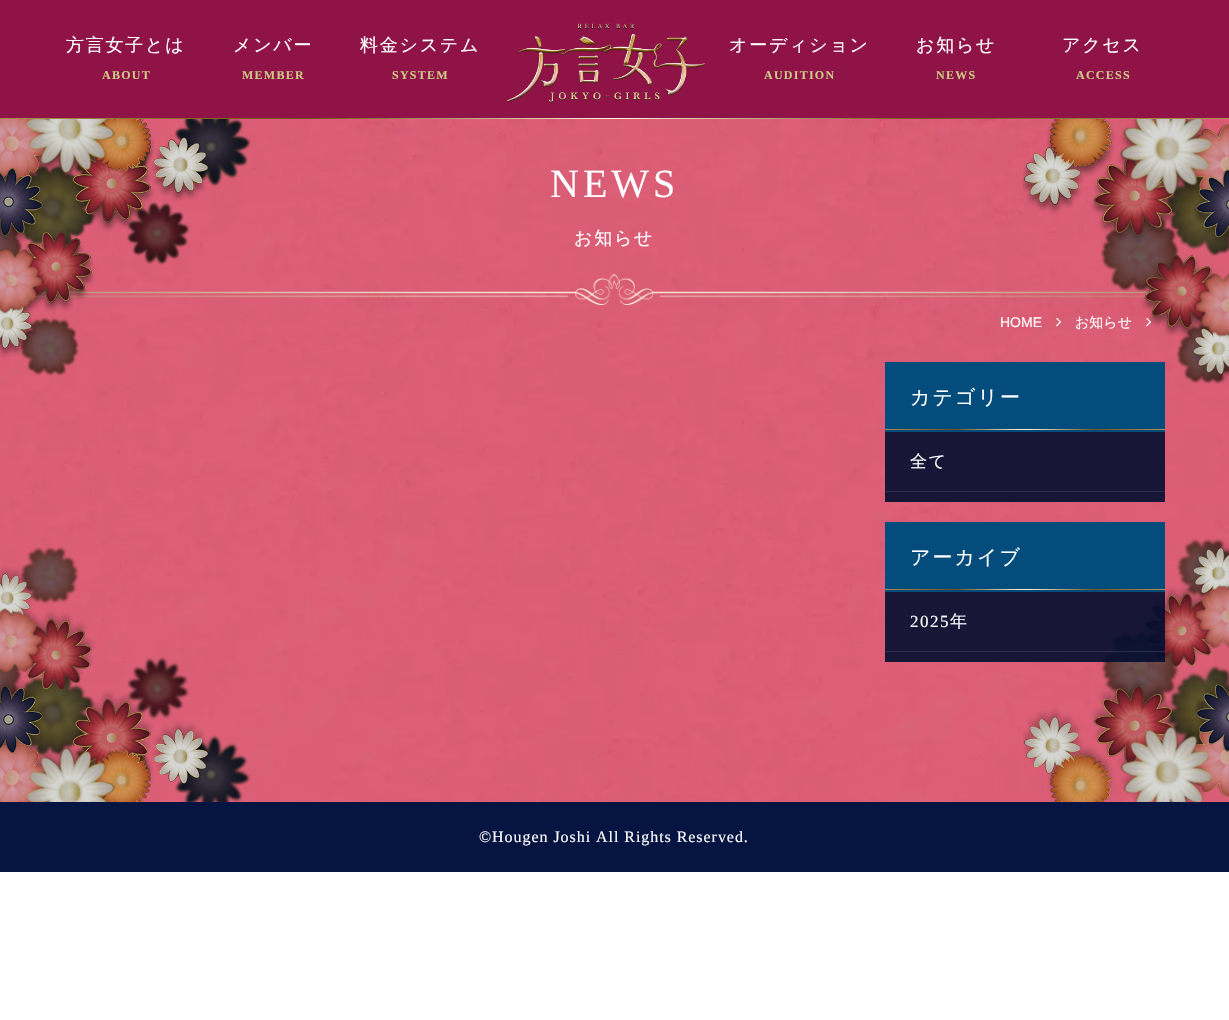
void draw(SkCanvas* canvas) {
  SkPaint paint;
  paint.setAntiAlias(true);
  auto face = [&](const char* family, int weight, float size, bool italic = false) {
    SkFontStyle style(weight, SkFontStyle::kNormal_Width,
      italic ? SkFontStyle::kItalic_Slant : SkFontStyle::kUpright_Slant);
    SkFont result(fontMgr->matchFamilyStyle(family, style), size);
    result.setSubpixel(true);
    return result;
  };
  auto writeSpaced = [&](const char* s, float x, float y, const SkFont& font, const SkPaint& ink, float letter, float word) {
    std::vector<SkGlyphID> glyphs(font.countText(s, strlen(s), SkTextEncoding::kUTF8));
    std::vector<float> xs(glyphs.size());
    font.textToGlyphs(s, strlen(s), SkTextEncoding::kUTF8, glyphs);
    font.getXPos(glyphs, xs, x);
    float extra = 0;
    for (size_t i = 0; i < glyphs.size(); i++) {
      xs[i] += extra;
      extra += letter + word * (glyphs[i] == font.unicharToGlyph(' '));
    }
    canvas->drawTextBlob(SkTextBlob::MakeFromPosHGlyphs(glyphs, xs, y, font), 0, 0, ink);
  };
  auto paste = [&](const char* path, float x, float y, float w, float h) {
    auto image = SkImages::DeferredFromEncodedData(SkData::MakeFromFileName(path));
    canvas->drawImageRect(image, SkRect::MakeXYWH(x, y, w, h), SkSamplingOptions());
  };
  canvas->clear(0xffffffff);
  paint.setColor(0xff901347);
  canvas->drawRect(SkRect::MakeXYWH(0, 0, 1229, 118), paint);
  paste("img/1.png", 0, 118, 1229, 1);
  paste("img/2.png", 507, 23, 198, 80);
  paste("img/3.png", 0, 119, 1229, 173);
  paste("img/8.png", 0, 292, 1229, 510);
  paste("img/6.png", 0, 538, 1229, 264);
  paste("img/7.png", 34, 274, 1119, 31);
  {
    const struct { float x, y, w, h; SkColor color; } items[] = {
      {885, 432, 280, 70, 0xe6020d2f},
      {885, 491, 280, 1, 0xff2c304d},
      {885, 522, 280, 70, 0xff034c7b},
    };
    for (auto [x, y, w, h, color] : items) {
      paint.setColor(color);
      canvas->drawRect(SkRect::MakeXYWH(x, y, w, h), paint);
    }
  }
  {
    const SkColor colors[] = {0xffa98d50, 0xff705218, 0xfffff3dc, 0xff73551c, 0xffaf9358};
    const float stops[] = {0, 0.25f, 0.5f, 0.75f, 1};
    const SkPoint ends[] = {{885, 590}, {1165, 590}};
    paint.setShader(SkGradientShader::MakeLinear(ends, colors, stops, 5, SkTileMode::kClamp));
    paint.setAlpha(255);
  }
  canvas->drawRect(SkRect::MakeXYWH(885, 589, 280, 1), paint);
  paint.setShader(nullptr);
  {
    const struct { float x, y, w, h; SkColor color; } items[] = {
      {885, 592, 280, 70, 0xe6020d2f},
      {885, 651, 280, 1, 0x80414a63},
      {0, 802, 1229, 70, 0xff051441},
    };
    for (auto [x, y, w, h, color] : items) {
      paint.setColor(color);
      canvas->drawRect(SkRect::MakeXYWH(x, y, w, h), paint);
    }
  }
  auto f0 = face("WenQuanYi Zen Hei", 500, 18);
  paint.setColor(0xffffffff);
  writeSpaced("方言女子とは", 66, 51, f0, paint, 1.75f, 0);
  auto f1 = face("Liberation Serif", 700, 12);
  paint.setColor(0xffcec986);
  writeSpaced("ABOUT", 102, 79, f1, paint, 1.25f, 0);
  paint.setColor(0xffffffff);
  writeSpaced("メンバー", 233, 51, f0, paint, 1.75f, 0);
  paint.setColor(0xffcec986);
  writeSpaced("MEMBER", 242, 79, f1, paint, 1.25f, 0);
  paint.setColor(0xffffffff);
  writeSpaced("料金システム", 360, 51, f0, paint, 1.75f, 0);
  paint.setColor(0xffcec986);
  writeSpaced("SYSTEM", 392, 79, f1, paint, 1.25f, 0);
  paint.setColor(0xffffffff);
  writeSpaced("オーディション", 729, 51, f0, paint, 1.75f, 0);
  paint.setColor(0xffcec986);
  writeSpaced("AUDITION", 764, 79, f1, paint, 1.25f, 0);
  paint.setColor(0xffffffff);
  writeSpaced("お知らせ", 916, 51, f0, paint, 1.75f, 0);
  paint.setColor(0xffcec986);
  writeSpaced("NEWS", 936, 79, f1, paint, 1.25f, 0);
  paint.setColor(0xffffffff);
  writeSpaced("アクセス", 1062, 51, f0, paint, 1.75f, 0);
  paint.setColor(0xffcec986);
  writeSpaced("ACCESS", 1076, 79, f1, paint, 1.25f, 0);
  auto f2 = face("Liberation Serif", 400, 40);
  paint.setColor(0xffffffff);
  writeSpaced("NEWS", 550, 197, f2, paint, 4, 0);
  writeSpaced("お知らせ", 574, 244, f0, paint, 1.75f, 0);
  paste("img/4.png", 0, 119, 1229, 265);
  paste("img/5.png", 0, 119, 1229, 265);
  auto f3 = face("Liberation Sans", 400, 14);
  canvas->drawString("HOME", 1000, 327, f3, paint);
  paste("img/9.png", 1056, 318, 5, 9);
  auto f4 = face("WenQuanYi Zen Hei", 500, 14);
  canvas->drawString("お知らせ", 1075, 327, f4, paint);
  paste("img/10.png", 1146, 318, 5, 9);
  paint.setColor(0xff034c7b);
  canvas->drawRect(SkRect::MakeXYWH(885, 362, 280, 70), paint);
  auto f5 = face("WenQuanYi Zen Hei", 500, 20);
  paint.setColor(0xffffffff);
  writeSpaced("カテゴリー", 910, 404, f5, paint, 2, 0);
  {
    const SkColor colors[] = {0xffa98d50, 0xff705218, 0xfffff3dc, 0xff73551c, 0xffaf9358};
    const float stops[] = {0, 0.25f, 0.5f, 0.75f, 1};
    const SkPoint ends[] = {{885, 430}, {1165, 430}};
    paint.setShader(SkGradientShader::MakeLinear(ends, colors, stops, 5, SkTileMode::kClamp));
    paint.setAlpha(255);
  }
  canvas->drawRect(SkRect::MakeXYWH(885, 429, 280, 1), paint);
  auto f6 = face("WenQuanYi Zen Hei", 500, 17);
  paint.setShader(nullptr);
  paint.setColor(0xffffffff);
  writeSpaced("全て", 910, 467, f6, paint, 1.5f, 0);
  writeSpaced("アーカイブ", 910, 564, f5, paint, 2, 0);
  auto f7 = face("Liberation Serif", 400, 17);
  writeSpaced("2025", 910, 627, f7, paint, 1.5f, 0);
  writeSpaced("年", 950, 627, f6, paint, 1.5f, 0);
  auto f8 = face("Liberation Serif", 400, 16);
  writeSpaced("©Hougen Joshi All Rights Reserved.", 479, 842, f8, paint, 0.95f, 0);
}
